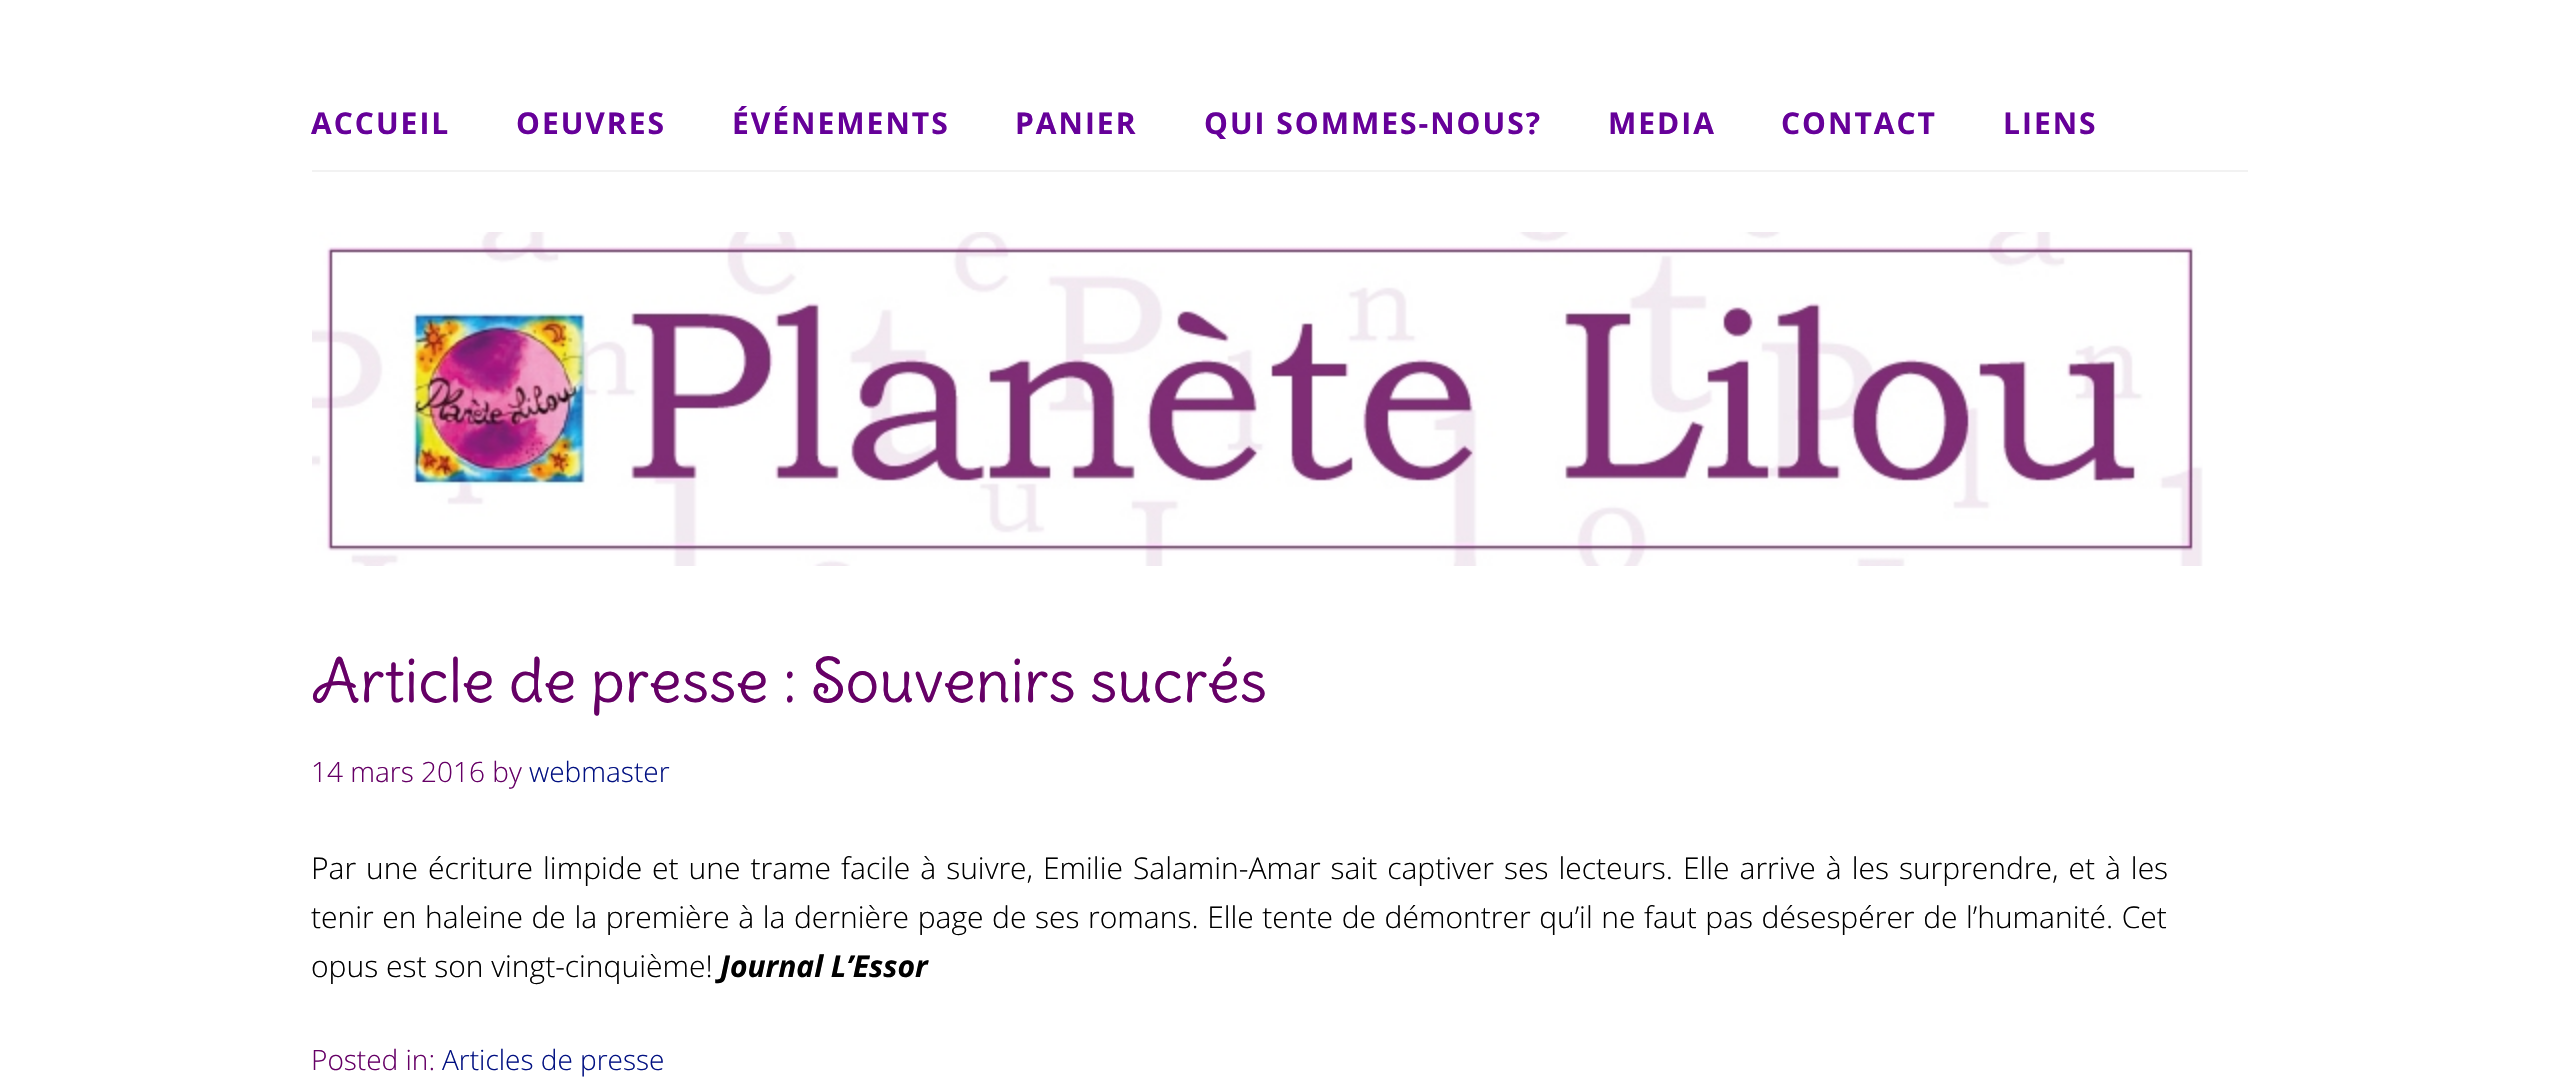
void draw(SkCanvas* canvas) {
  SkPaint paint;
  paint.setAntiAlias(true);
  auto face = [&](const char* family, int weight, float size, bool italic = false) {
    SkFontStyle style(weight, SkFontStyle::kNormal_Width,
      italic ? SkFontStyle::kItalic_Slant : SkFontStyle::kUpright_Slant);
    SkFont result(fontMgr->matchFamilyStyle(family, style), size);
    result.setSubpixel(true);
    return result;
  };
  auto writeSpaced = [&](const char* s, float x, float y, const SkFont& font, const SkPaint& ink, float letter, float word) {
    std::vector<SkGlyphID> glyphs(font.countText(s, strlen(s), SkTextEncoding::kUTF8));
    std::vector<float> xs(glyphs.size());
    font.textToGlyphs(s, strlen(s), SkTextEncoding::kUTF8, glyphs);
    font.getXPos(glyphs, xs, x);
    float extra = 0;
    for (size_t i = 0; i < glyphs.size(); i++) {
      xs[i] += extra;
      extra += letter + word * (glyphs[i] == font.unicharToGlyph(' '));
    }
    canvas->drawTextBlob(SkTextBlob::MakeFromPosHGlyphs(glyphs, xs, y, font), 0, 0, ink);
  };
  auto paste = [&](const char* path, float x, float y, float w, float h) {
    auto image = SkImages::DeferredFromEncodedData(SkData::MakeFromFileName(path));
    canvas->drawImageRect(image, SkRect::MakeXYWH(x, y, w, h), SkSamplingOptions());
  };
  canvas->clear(0xffffffff);
  paint.setColor(0xfff2f2f2);
  canvas->drawRect(SkRect::MakeXYWH(312, 170, 1936, 2), paint);
  paste("img/1.png", 312, 232, 1891, 334);
  auto f0 = face("Open Sans", 700, 30);
  paint.setColor(0xff660099);
  {
    const struct { const char* s; float x, y; } items[] = {
      {"ACCUEIL", 311, 134},
      {"OEUVRES", 516, 134},
      {"ÉVÉNEMENTS", 732, 134},
      {"PANIER", 1015, 134},
      {"QUI SOMMES-NOUS?", 1204, 134},
      {"MEDIA", 1608, 134},
      {"CONTACT", 1781, 134},
      {"LIENS", 2003, 134},
    };
    for (auto [s, x, y] : items) {
      writeSpaced(s, x, y, f0, paint, 2, 0);
    }
  }
  auto f1 = face("Delius Swash Caps", 400, 60);
  paint.setColor(0xff660066);
  canvas->drawString("Article de presse : Souvenirs sucrés", 311, 702, f1, paint);
  auto f2 = face("Open Sans", 300, 28);
  canvas->drawString("14 mars 2016 by", 311, 782, f2, paint);
  paint.setColor(0xff021182);
  canvas->drawString("webmaster", 529, 782, f2, paint);
  auto f3 = face("Open Sans", 300, 30);
  paint.setColor(0xff000000);
  writeSpaced("Par une écriture limpide et une trame facile à suivre, Emilie Salamin-Amar sait captiver ses lecteurs. Elle arrive à les surprendre, et à les", 311, 879, f3, paint, 0, 2.2f);
  writeSpaced("tenir en haleine de la première à la dernière page de ses romans. Elle tente de démontrer qu’il ne faut pas désespérer de l’humanité. Cet", 311, 928, f3, paint, 0, 0.8f);
  canvas->drawString("opus est son vingt-cinquième!", 311, 977, f3, paint);
  auto f4 = face("Open Sans", 700, 30, true);
  canvas->drawString("Journal L’Essor", 720, 977, f4, paint);
  paint.setColor(0xff660066);
  canvas->drawString("Posted in:", 311, 1070, f2, paint);
  paint.setColor(0xff021182);
  canvas->drawString("Articles de presse", 442, 1070, f2, paint);
}
